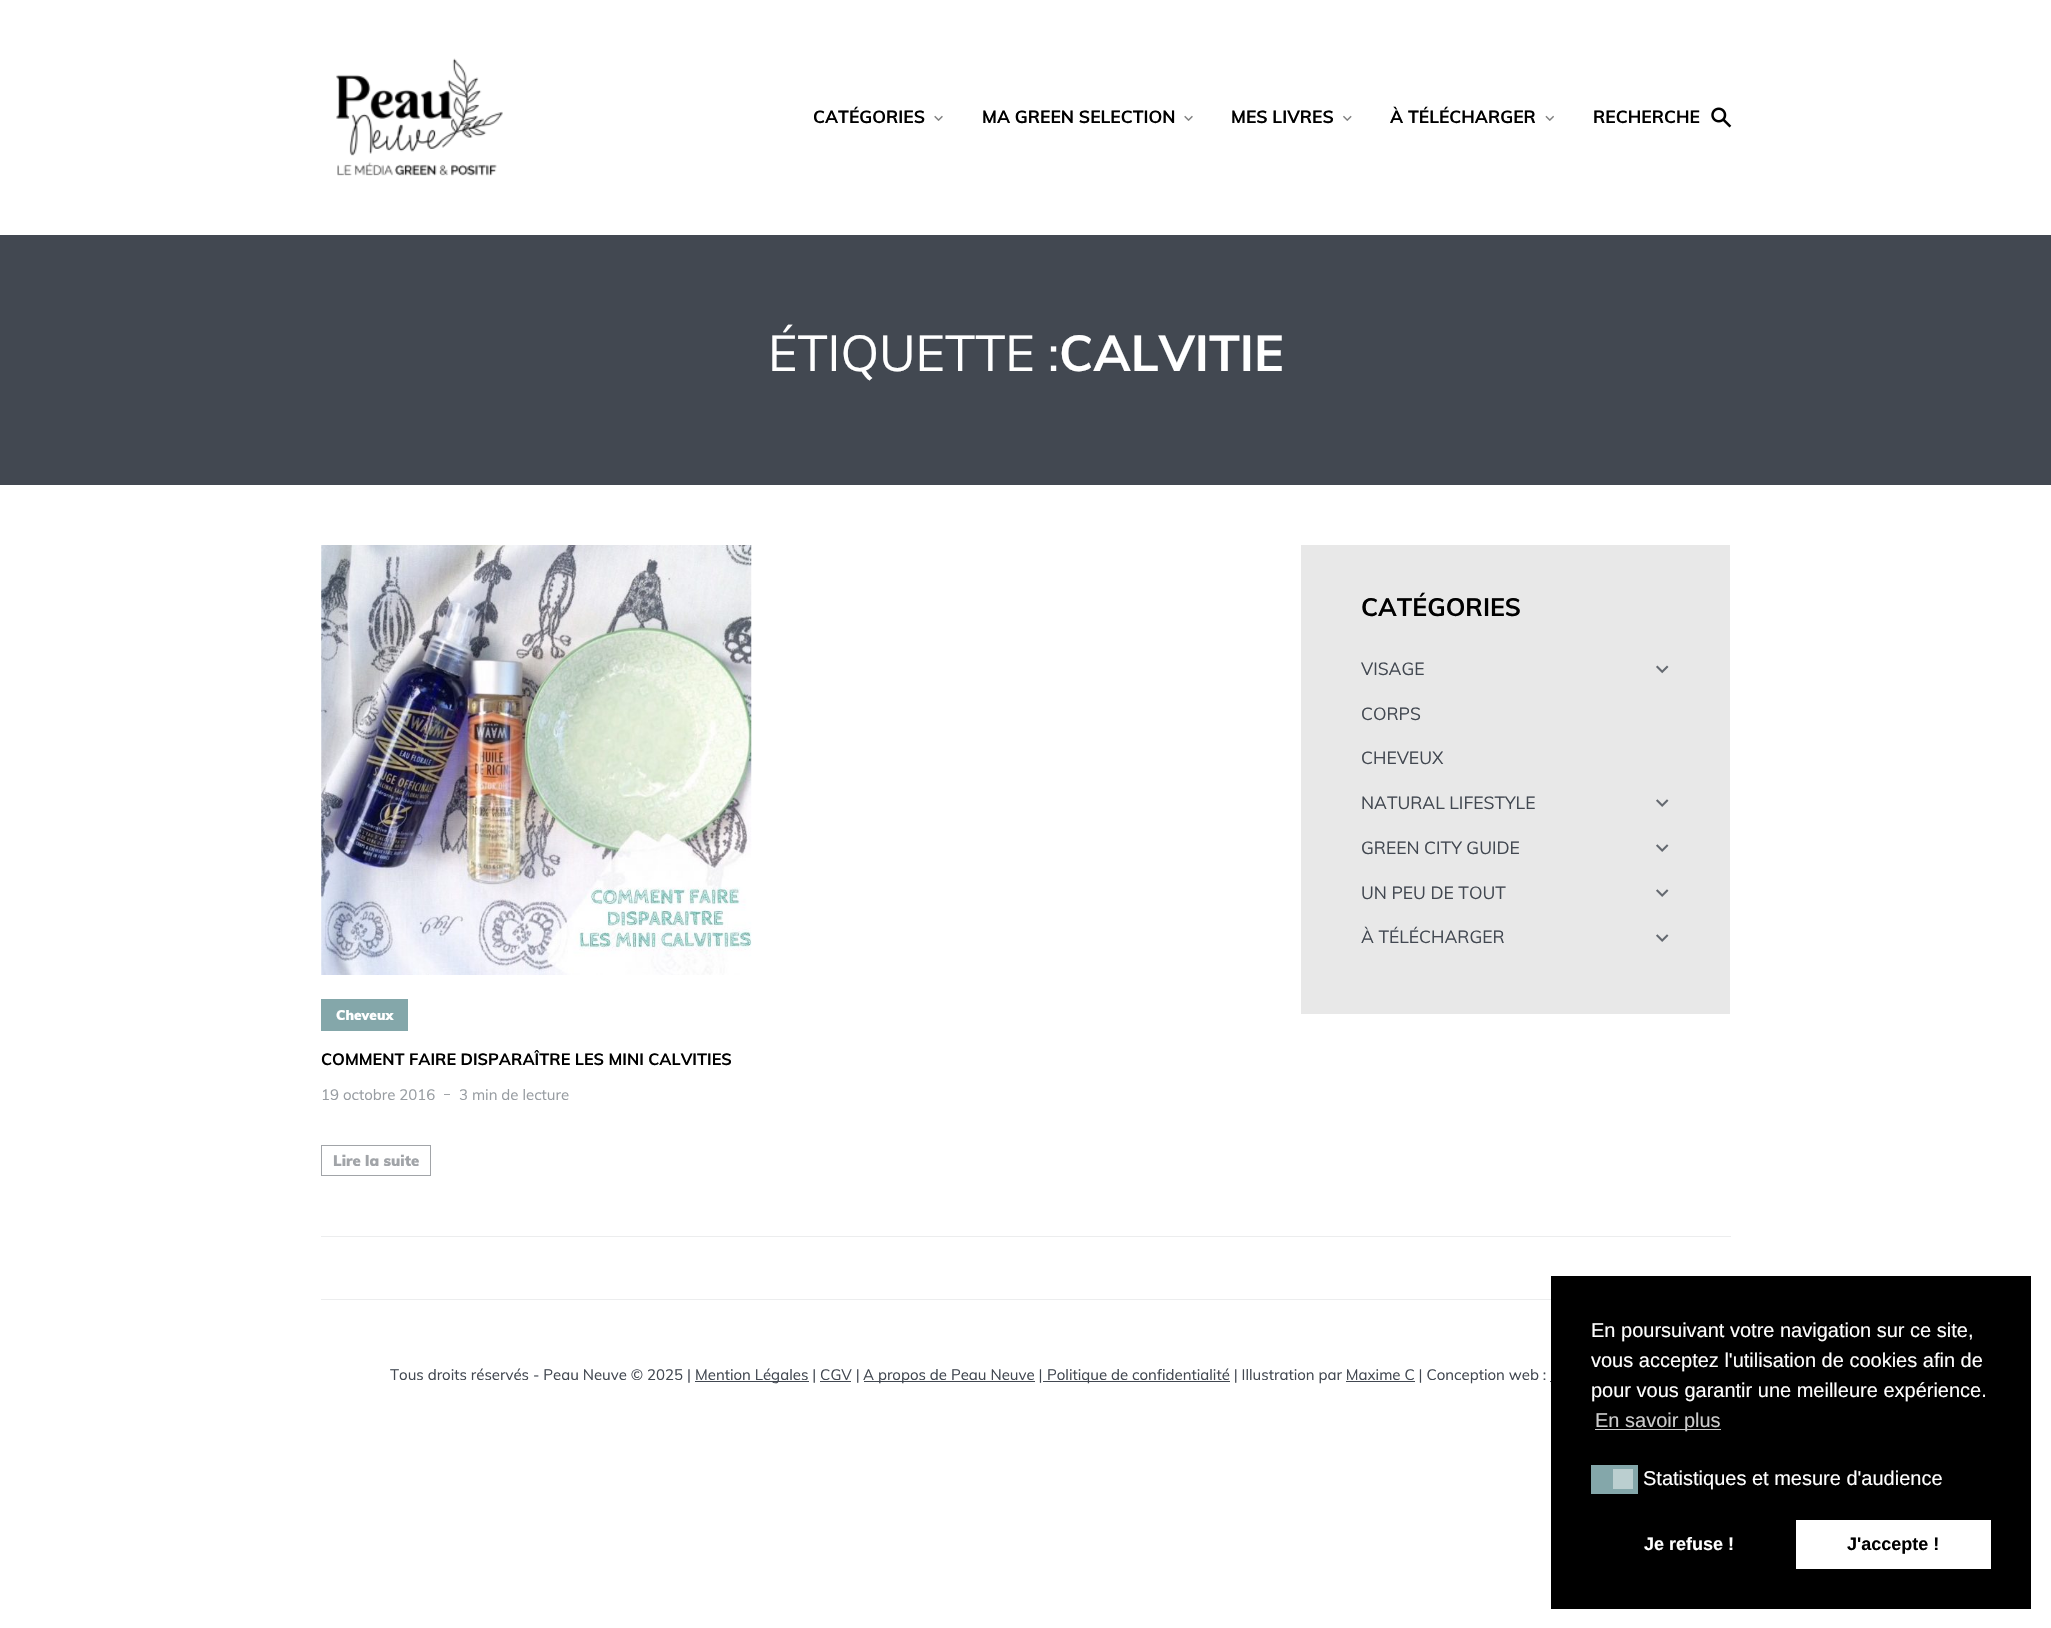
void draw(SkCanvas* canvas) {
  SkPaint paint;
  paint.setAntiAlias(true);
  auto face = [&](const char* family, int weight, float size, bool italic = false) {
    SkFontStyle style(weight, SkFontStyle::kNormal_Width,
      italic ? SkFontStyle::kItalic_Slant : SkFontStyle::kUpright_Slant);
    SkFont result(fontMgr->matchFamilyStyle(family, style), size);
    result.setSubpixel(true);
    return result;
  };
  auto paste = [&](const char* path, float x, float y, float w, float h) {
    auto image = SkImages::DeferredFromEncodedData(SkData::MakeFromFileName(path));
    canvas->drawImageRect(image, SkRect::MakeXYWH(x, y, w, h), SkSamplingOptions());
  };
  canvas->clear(0xffffffff);
  paste("img/1.png", 336, 58, 167, 118);
  paste("img/2.png", 934, 115, 9, 6);
  paste("img/2.png", 1184, 115, 9, 6);
  paste("img/3.png", 1343, 115, 9, 6);
  paste("img/4.png", 1545, 115, 9, 6);
  paste("img/5.png", 1711, 107, 21, 21);
  paint.setColor(0xff424851);
  canvas->drawRect(SkRect::MakeXYWH(0, 235, 2051, 250), paint);
  paint.setColor(0xffe8e8e8);
  canvas->drawRect(SkRect::MakeXYWH(1301, 545, 429, 469), paint);
  paste("img/6.png", 1656, 665, 13, 9);
  paste("img/7.png", 1656, 799, 13, 8);
  paste("img/7.png", 1656, 844, 13, 8);
  paste("img/7.png", 1656, 889, 13, 8);
  paste("img/7.png", 1656, 934, 13, 8);
  paste("img/8.png", 321, 545, 431, 430);
  paint.setColor(0xff84a7aa);
  canvas->drawRect(SkRect::MakeXYWH(321, 999, 87, 32), paint);
  paint.setColor(0xffa1a4a8);
  canvas->drawRect(SkRect::MakeXYWH(444, 1094, 6, 1), paint);
  paint.setStroke(true);
  paint.setStrokeWidth(1);
  canvas->drawRect(SkRect::MakeXYWH(321.5f, 1145.5f, 109, 30), paint);
  paint.setStroke(false);
  {
    const struct { float x, y, w, h; SkColor color; } items[] = {
      {321, 1236, 1410, 1, 0xffecedee},
      {321, 1299, 1230, 1, 0xffecedee},
      {695, 1381, 114, 1, 0xff424851},
      {864, 1381, 171, 1, 0xff424851},
      {1043, 1381, 187, 1, 0xff424851},
      {820, 1381, 31, 1, 0xff424851},
      {1346, 1381, 69, 1, 0xff424851},
      {1550, 1381, 1, 1, 0xff424851},
      {1551, 1276, 480, 333, 0xff000000},
      {1595, 1429, 126, 1, 0xffcccccc},
      {1591, 1465, 47, 29, 0xff84a7aa},
      {1613, 1469, 20, 20, 0xffbbcfd0},
      {1796, 1520, 195, 49, 0xffffffff},
    };
    for (auto [x, y, w, h, color] : items) {
      paint.setColor(color);
      canvas->drawRect(SkRect::MakeXYWH(x, y, w, h), paint);
    }
  }
  auto f0 = face("Muli", 700, 17.5f);
  paint.setColor(0xff000000);
  {
    const struct { const char* s; float x, y; } items[] = {
      {"CATÉGORIES", 813, 123},
      {"MA GREEN SELECTION", 982, 123},
      {"MES LIVRES", 1231, 123},
      {"À TÉLÉCHARGER", 1390, 123},
      {"RECHERCHE", 1593, 123},
    };
    for (auto [s, x, y] : items) {
      canvas->drawString(s, x, y, f0, paint);
    }
  }
  auto f1 = face("Muli", 400, 50);
  paint.setColor(0xffffffff);
  canvas->drawString("ÉTIQUETTE :", 768, 371, f1, paint);
  auto f2 = face("Muli", 700, 50);
  canvas->drawString("CALVITIE", 1059, 371, f2, paint);
  auto f3 = face("Muli", 700, 25);
  paint.setColor(0xff000000);
  canvas->drawString("CATÉGORIES", 1361, 616, f3, paint);
  auto f4 = face("Muli", 400, 17.5f);
  paint.setColor(0xff424851);
  {
    const struct { const char* s; float x, y; } items[] = {
      {"VISAGE", 1361, 675},
      {"CORPS", 1361, 720},
      {"CHEVEUX", 1361, 764},
      {"NATURAL LIFESTYLE", 1361, 809},
      {"GREEN CITY GUIDE", 1361, 854},
      {"UN PEU DE TOUT", 1361, 899},
      {"À TÉLÉCHARGER", 1361, 943},
    };
    for (auto [s, x, y] : items) {
      canvas->drawString(s, x, y, f4, paint);
    }
  }
  auto f5 = face("Muli", 900, 13.75f);
  paint.setColor(0xffffffff);
  canvas->drawString("Cheveux", 336, 1020, f5, paint);
  auto f6 = face("Muli", 700, 16.25f);
  paint.setColor(0xff000000);
  canvas->drawString("COMMENT FAIRE DISPARAÎTRE LES MINI CALVITIES", 321, 1065, f6, paint);
  auto f7 = face("Muli", 400, 15);
  paint.setColor(0xff989da2);
  canvas->drawString("19 octobre 2016", 321, 1100, f7, paint);
  canvas->drawString("3 min de lecture", 459, 1100, f7, paint);
  auto f8 = face("Muli", 900, 15);
  paint.setColor(0xffa1a4a8);
  canvas->drawString("Lire la suite", 333, 1166, f8, paint);
  paint.setColor(0xff424851);
  {
    const struct { const char* s; float x, y; } items[] = {
      {"Tous droits réservés - Peau Neuve © 2025 |", 390, 1380},
      {"Mention Légales | CGV |", 695, 1380},
      {"A propos de Peau Neuve |", 863, 1380},
      {"Politique de confidentialité | Illustration par Maxime C | Conception web :", 1047, 1380},
    };
    for (auto [s, x, y] : items) {
      canvas->drawString(s, x, y, f7, paint);
    }
  }
  auto f9 = face("Liberation Sans", 400, 20);
  paint.setColor(0xffffffff);
  {
    const struct { const char* s; float x, y; } items[] = {
      {"En poursuivant votre navigation sur ce site,", 1591, 1337},
      {"vous acceptez l'utilisation de cookies afin de", 1591, 1367},
      {"pour vous garantir une meilleure expérience.", 1591, 1397},
    };
    for (auto [s, x, y] : items) {
      canvas->drawString(s, x, y, f9, paint);
    }
  }
  paint.setColor(0xffcccccc);
  canvas->drawString("En savoir plus", 1595, 1427, f9, paint);
  paint.setColor(0xffffffff);
  canvas->drawString("Statistiques et mesure d'audience", 1643, 1485, f9, paint);
  auto f10 = face("Liberation Sans", 700, 18);
  canvas->drawString("Je refuse !", 1644, 1550, f10, paint);
  paint.setColor(0xff000000);
  canvas->drawString("J'accepte !", 1847, 1550, f10, paint);
}
